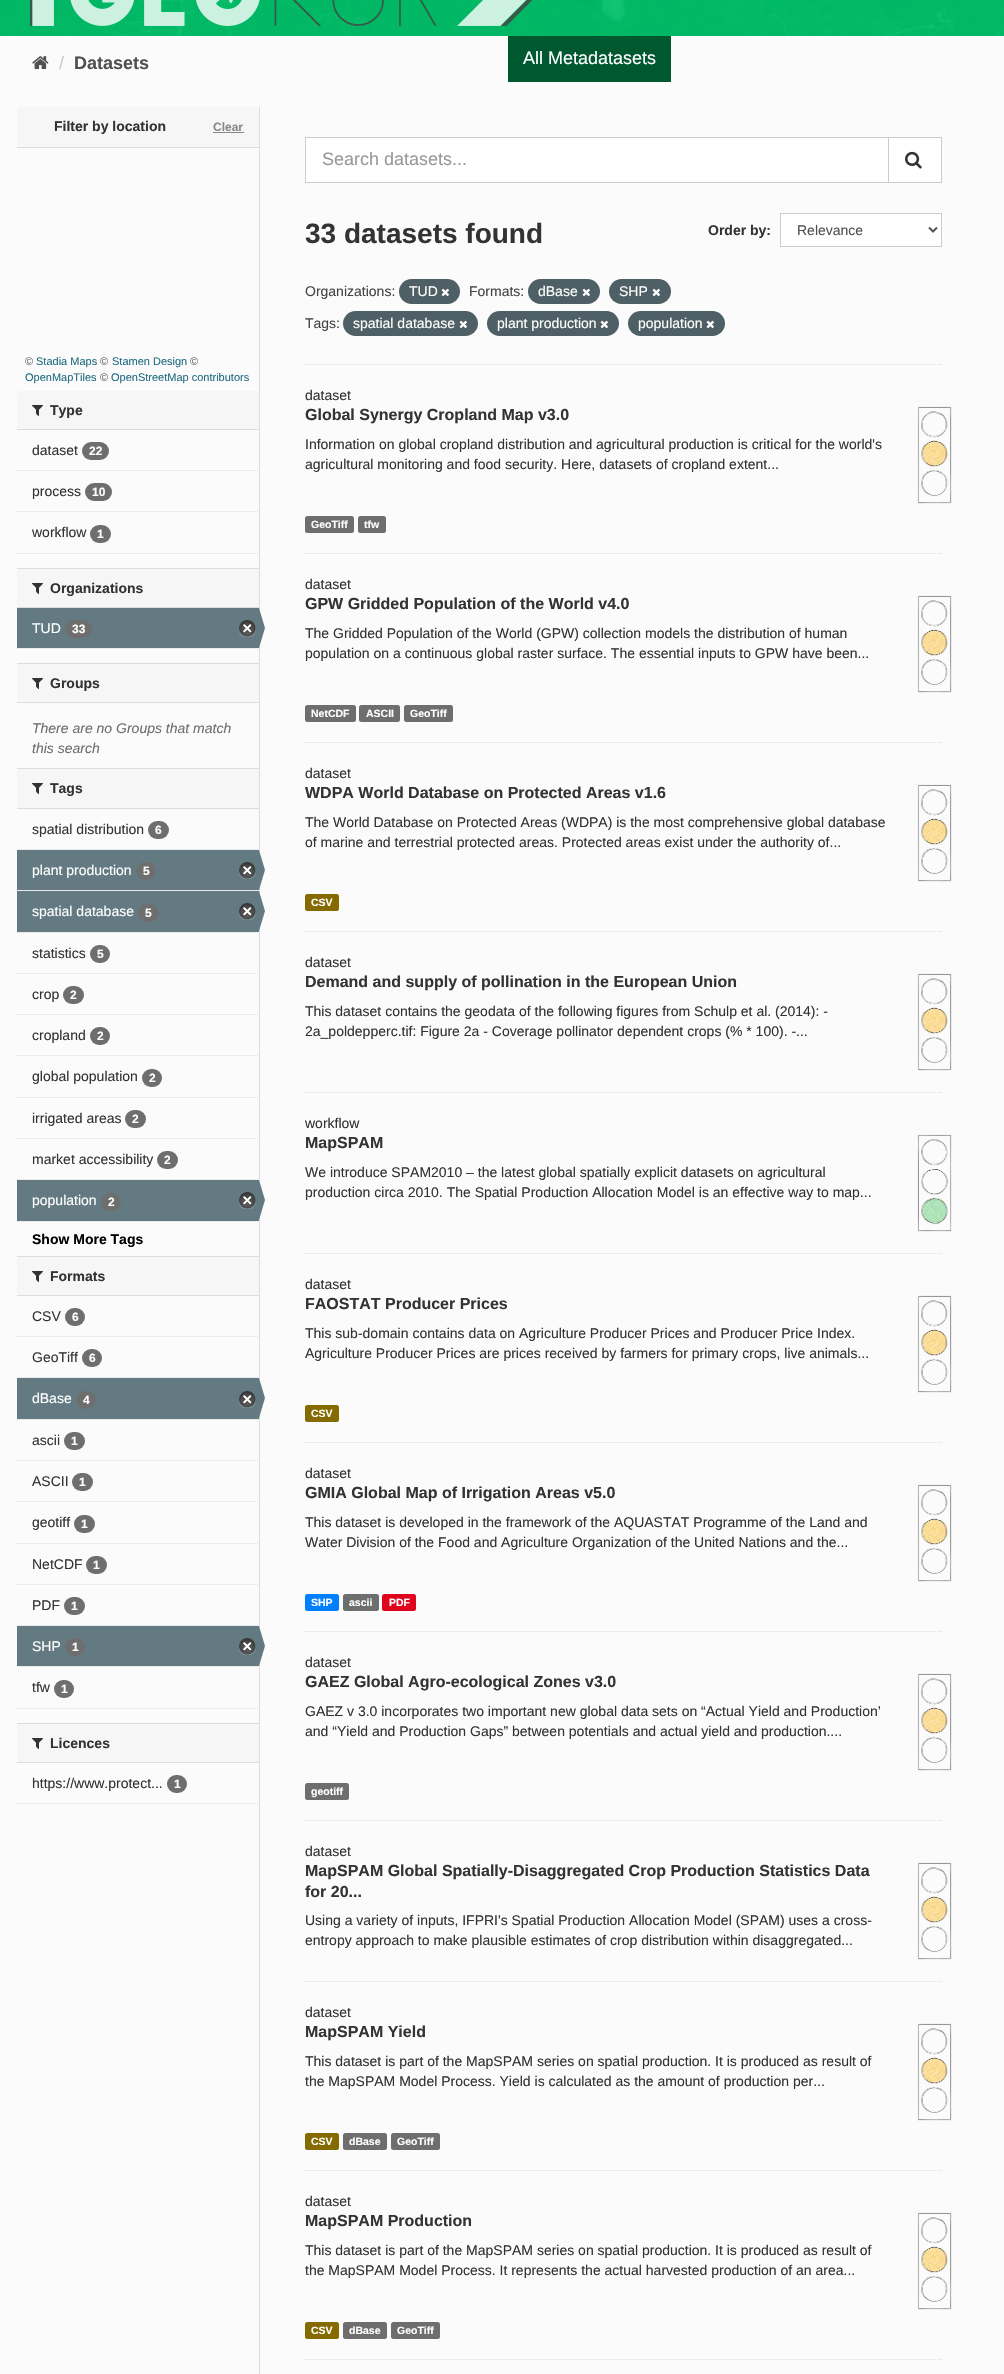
void draw(SkCanvas* canvas) {
  SkPaint paint;
  paint.setAntiAlias(true);
  auto face = [&](const char* family, int weight, float size, bool italic = false) {
    SkFontStyle style(weight, SkFontStyle::kNormal_Width,
      italic ? SkFontStyle::kItalic_Slant : SkFontStyle::kUpright_Slant);
    SkFont result(fontMgr->matchFamilyStyle(family, style), size);
    result.setSubpixel(true);
    return result;
  };
  auto paste = [&](const char* path, float x, float y, float w, float h) {
    auto image = SkImages::DeferredFromEncodedData(SkData::MakeFromFileName(path));
    canvas->drawImageRect(image, SkRect::MakeXYWH(x, y, w, h), SkSamplingOptions());
  };
  auto shape = [&](const char* data, bool evenOdd = false) {
    SkPath result = *SkParsePath::FromSVGString(data);
    if (evenOdd) result.setFillType(SkPathFillType::kEvenOdd);
    return result;
  };
  canvas->clear(0xfffbfbfb);
  paint.setColor(0xff00c46c);
  canvas->drawRect(SkRect::MakeXYWH(0, 0, 1004, 36), paint);
  paste("img/1.png", 0, 0, 1004, 36);
  paste("img/2.png", 30, 0, 503, 26);
  paint.setColor(0xff005831);
  canvas->drawRect(SkRect::MakeXYWH(508, 36, 163, 46), paint);
  paste("img/3.png", 32, 56, 17, 13);
  paint.setColor(0xfff6f6f6);
  canvas->drawPath(shape("M20 107H259V148H17V110C17 108.5 18.5 107 20 107Z"), paint);
  paint.setColor(0xffdddddd);
  canvas->drawRect(SkRect::MakeXYWH(17, 147, 242, 1), paint);
  paint.setColor(0xff888888);
  canvas->drawRect(SkRect::MakeXYWH(213, 132, 31, 1), paint);
  paint.setColor(0xfff6f6f6);
  canvas->drawPath(shape("M20 391H259V430H17V394C17 392.5 18.5 391 20 391Z"), paint);
  paint.setColor(0xffdddddd);
  canvas->drawRect(SkRect::MakeXYWH(17, 429, 242, 1), paint);
  paste("img/4.png", 32, 405, 11, 11);
  paint.setStroke(true);
  paint.setStrokeWidth(1);
  paint.setPathEffect(SkDashPathEffect::Make({{1, 1}}, 0));
  canvas->drawPath(shape("M17 470.5H259"), paint);
  paint.setPathEffect(nullptr);
  paint.setStroke(false);
  paint.setColor(0xff6e6e6e);
  canvas->drawRoundRect(SkRect::MakeXYWH(82, 442, 27, 18), 9, 9, paint);
  paint.setStroke(true);
  paint.setColor(0xffdddddd);
  paint.setPathEffect(SkDashPathEffect::Make({{1, 1}}, 0));
  canvas->drawPath(shape("M17 511.5H259"), paint);
  paint.setPathEffect(nullptr);
  paint.setStroke(false);
  paint.setColor(0xff6e6e6e);
  canvas->drawRoundRect(SkRect::MakeXYWH(85, 483, 27, 18), 9, 9, paint);
  canvas->drawRoundRect(SkRect::MakeXYWH(90, 525, 21, 18), 9, 9, paint);
  paint.setStroke(true);
  paint.setColor(0xffdddddd);
  paint.setPathEffect(SkDashPathEffect::Make({{1, 1}}, 0));
  canvas->drawPath(shape("M17 553.5H259"), paint);
  paint.setPathEffect(nullptr);
  paint.setStroke(false);
  {
    const struct { float x, y, w, h; SkColor color; } items[] = {
      {17, 569, 242, 38, 0xfff6f6f6},
      {17, 568, 242, 1, 0xffdddddd},
      {17, 607, 242, 1, 0xffdddddd},
    };
    for (auto [x, y, w, h, color] : items) {
      paint.setColor(color);
      canvas->drawRect(SkRect::MakeXYWH(x, y, w, h), paint);
    }
  }
  paste("img/4.png", 32, 583, 11, 11);
  paint.setColor(0xff647a82);
  canvas->drawRect(SkRect::MakeXYWH(17, 608, 242, 40), paint);
  paint.setColor(0xff6e6e6e);
  canvas->drawRoundRect(SkRect::MakeXYWH(65, 620, 27, 18), 9, 9, paint);
  paste("img/5.png", 239, 620, 17, 17);
  paint.setColor(0xffdddddd);
  canvas->drawRect(SkRect::MakeXYWH(259, 107, 1, 2267), paint);
  paint.setColor(0xff647a82);
  canvas->drawPath(shape("M259 648V608L265 628Z"), paint);
  paint.setStroke(true);
  paint.setColor(0xffdddddd);
  paint.setPathEffect(SkDashPathEffect::Make({{1, 1}}, 0));
  canvas->drawPath(shape("M17 648.5H259"), paint);
  paint.setPathEffect(nullptr);
  paint.setStroke(false);
  {
    const struct { float x, y, w, h; SkColor color; } items[] = {
      {17, 664, 242, 38, 0xfff6f6f6},
      {17, 663, 242, 1, 0xffdddddd},
      {17, 702, 242, 1, 0xffdddddd},
    };
    for (auto [x, y, w, h, color] : items) {
      paint.setColor(color);
      canvas->drawRect(SkRect::MakeXYWH(x, y, w, h), paint);
    }
  }
  paste("img/4.png", 32, 678, 11, 11);
  {
    const struct { float x, y, w, h; SkColor color; } items[] = {
      {17, 769, 242, 39, 0xfff6f6f6},
      {17, 768, 242, 1, 0xffdddddd},
      {17, 808, 242, 1, 0xffdddddd},
    };
    for (auto [x, y, w, h, color] : items) {
      paint.setColor(color);
      canvas->drawRect(SkRect::MakeXYWH(x, y, w, h), paint);
    }
  }
  paste("img/4.png", 32, 783, 11, 11);
  paint.setStroke(true);
  paint.setPathEffect(SkDashPathEffect::Make({{1, 1}}, 0));
  canvas->drawPath(shape("M17 849.5H259"), paint);
  paint.setPathEffect(nullptr);
  paint.setStroke(false);
  paint.setColor(0xff6e6e6e);
  canvas->drawRoundRect(SkRect::MakeXYWH(148, 821, 21, 18), 9, 9, paint);
  paint.setColor(0xfff6f6f6);
  canvas->drawRect(SkRect::MakeXYWH(18, 890, 241, 1), paint);
  paint.setStroke(true);
  paint.setColor(0xffdddddd);
  paint.setPathEffect(SkDashPathEffect::Make({{1, 1}}, 0));
  canvas->drawPath(shape("M17 890.5H259"), paint);
  paint.setPathEffect(nullptr);
  paint.setStroke(false);
  paint.setColor(0xff647a82);
  canvas->drawRect(SkRect::MakeXYWH(17, 850, 242, 40), paint);
  paint.setColor(0xff6e6e6e);
  canvas->drawRoundRect(SkRect::MakeXYWH(136, 862, 20, 18), 9, 9, paint);
  paste("img/5.png", 239, 862, 17, 17);
  paint.setColor(0xff647a82);
  canvas->drawPath(shape("M259 890V850L265 870Z"), paint);
  paint.setColor(0xfff6f6f6);
  canvas->drawRect(SkRect::MakeXYWH(18, 932, 241, 1), paint);
  paint.setStroke(true);
  paint.setColor(0xffdddddd);
  paint.setPathEffect(SkDashPathEffect::Make({{1, 1}}, 0));
  canvas->drawPath(shape("M17 932.5H259"), paint);
  paint.setPathEffect(nullptr);
  paint.setStroke(false);
  paint.setColor(0xff647a82);
  canvas->drawRect(SkRect::MakeXYWH(17, 891, 242, 41), paint);
  paint.setColor(0xff6e6e6e);
  canvas->drawRoundRect(SkRect::MakeXYWH(138, 904, 21, 18), 9, 9, paint);
  paste("img/5.png", 239, 903, 17, 17);
  paint.setColor(0xff647a82);
  canvas->drawPath(shape("M259 931V891L265 911Z"), paint);
  paint.setStroke(true);
  paint.setColor(0xffdddddd);
  paint.setPathEffect(SkDashPathEffect::Make({{1, 1}}, 0));
  canvas->drawPath(shape("M17 973.5H259"), paint);
  paint.setPathEffect(nullptr);
  paint.setStroke(false);
  paint.setColor(0xff6e6e6e);
  canvas->drawRoundRect(SkRect::MakeXYWH(90, 945, 20, 18), 9, 9, paint);
  paint.setStroke(true);
  paint.setColor(0xffdddddd);
  paint.setPathEffect(SkDashPathEffect::Make({{1, 1}}, 0));
  canvas->drawPath(shape("M17 1014.5H259"), paint);
  paint.setPathEffect(nullptr);
  paint.setStroke(false);
  paint.setColor(0xff6e6e6e);
  canvas->drawRoundRect(SkRect::MakeXYWH(63, 986, 21, 18), 9, 9, paint);
  paint.setStroke(true);
  paint.setColor(0xffdddddd);
  paint.setPathEffect(SkDashPathEffect::Make({{1, 1}}, 0));
  canvas->drawPath(shape("M17 1055.5H259"), paint);
  paint.setPathEffect(nullptr);
  paint.setStroke(false);
  paint.setColor(0xff6e6e6e);
  canvas->drawRoundRect(SkRect::MakeXYWH(90, 1027, 20, 18), 9, 9, paint);
  paint.setStroke(true);
  paint.setColor(0xffdddddd);
  paint.setPathEffect(SkDashPathEffect::Make({{1, 1}}, 0));
  canvas->drawPath(shape("M17 1097.5H259"), paint);
  paint.setPathEffect(nullptr);
  paint.setStroke(false);
  paint.setColor(0xff6e6e6e);
  canvas->drawRoundRect(SkRect::MakeXYWH(142, 1069, 20, 18), 9, 9, paint);
  paint.setStroke(true);
  paint.setColor(0xffdddddd);
  paint.setPathEffect(SkDashPathEffect::Make({{1, 1}}, 0));
  canvas->drawPath(shape("M17 1138.5H259"), paint);
  paint.setPathEffect(nullptr);
  paint.setStroke(false);
  paint.setColor(0xff6e6e6e);
  canvas->drawRoundRect(SkRect::MakeXYWH(125, 1110, 21, 18), 9, 9, paint);
  paint.setStroke(true);
  paint.setColor(0xffdddddd);
  paint.setPathEffect(SkDashPathEffect::Make({{1, 1}}, 0));
  canvas->drawPath(shape("M17 1179.5H259"), paint);
  paint.setPathEffect(nullptr);
  paint.setStroke(false);
  paint.setColor(0xff6e6e6e);
  canvas->drawRoundRect(SkRect::MakeXYWH(157, 1151, 21, 18), 9, 9, paint);
  paint.setColor(0xff647a82);
  canvas->drawRect(SkRect::MakeXYWH(17, 1180, 242, 41), paint);
  paint.setColor(0xff6e6e6e);
  canvas->drawRoundRect(SkRect::MakeXYWH(101, 1193, 20, 18), 9, 9, paint);
  paste("img/5.png", 239, 1192, 17, 17);
  paint.setColor(0xff647a82);
  canvas->drawPath(shape("M259 1220V1180L265 1200Z"), paint);
  paint.setStroke(true);
  paint.setColor(0xffdddddd);
  paint.setPathEffect(SkDashPathEffect::Make({{1, 1}}, 0));
  canvas->drawPath(shape("M17 1221.5H259"), paint);
  paint.setPathEffect(nullptr);
  paint.setStroke(false);
  {
    const struct { float x, y, w, h; SkColor color; } items[] = {
      {17, 1257, 242, 38, 0xfff6f6f6},
      {17, 1256, 242, 1, 0xffdddddd},
      {17, 1295, 242, 1, 0xffdddddd},
    };
    for (auto [x, y, w, h, color] : items) {
      paint.setColor(color);
      canvas->drawRect(SkRect::MakeXYWH(x, y, w, h), paint);
    }
  }
  paste("img/4.png", 32, 1271, 11, 11);
  paint.setStroke(true);
  paint.setPathEffect(SkDashPathEffect::Make({{1, 1}}, 0));
  canvas->drawPath(shape("M17 1336.5H259"), paint);
  paint.setPathEffect(nullptr);
  paint.setStroke(false);
  paint.setColor(0xff6e6e6e);
  canvas->drawRoundRect(SkRect::MakeXYWH(65, 1308, 20, 18), 9, 9, paint);
  paint.setStroke(true);
  paint.setColor(0xffdddddd);
  paint.setPathEffect(SkDashPathEffect::Make({{1, 1}}, 0));
  canvas->drawPath(shape("M17 1377.5H259"), paint);
  paint.setPathEffect(nullptr);
  paint.setStroke(false);
  paint.setColor(0xff6e6e6e);
  canvas->drawRoundRect(SkRect::MakeXYWH(82, 1349, 20, 18), 9, 9, paint);
  paint.setColor(0xfff6f6f6);
  canvas->drawRect(SkRect::MakeXYWH(18, 1419, 241, 1), paint);
  paint.setStroke(true);
  paint.setColor(0xffdddddd);
  paint.setPathEffect(SkDashPathEffect::Make({{1, 1}}, 0));
  canvas->drawPath(shape("M17 1419.5H259"), paint);
  paint.setPathEffect(nullptr);
  paint.setStroke(false);
  paint.setColor(0xff647a82);
  canvas->drawRect(SkRect::MakeXYWH(17, 1378, 242, 41), paint);
  paint.setColor(0xff6e6e6e);
  canvas->drawRoundRect(SkRect::MakeXYWH(76, 1391, 20, 18), 9, 9, paint);
  paste("img/5.png", 239, 1391, 17, 17);
  paint.setColor(0xff647a82);
  canvas->drawPath(shape("M259 1418V1378L265 1398Z"), paint);
  paint.setStroke(true);
  paint.setColor(0xffdddddd);
  paint.setPathEffect(SkDashPathEffect::Make({{1, 1}}, 0));
  canvas->drawPath(shape("M17 1460.5H259"), paint);
  paint.setPathEffect(nullptr);
  paint.setStroke(false);
  paint.setColor(0xff6e6e6e);
  canvas->drawRoundRect(SkRect::MakeXYWH(64, 1432, 21, 18), 9, 9, paint);
  paint.setStroke(true);
  paint.setColor(0xffdddddd);
  paint.setPathEffect(SkDashPathEffect::Make({{1, 1}}, 0));
  canvas->drawPath(shape("M17 1501.5H259"), paint);
  paint.setPathEffect(nullptr);
  paint.setStroke(false);
  paint.setColor(0xff6e6e6e);
  canvas->drawRoundRect(SkRect::MakeXYWH(72, 1473, 21, 18), 9, 9, paint);
  paint.setStroke(true);
  paint.setColor(0xffdddddd);
  paint.setPathEffect(SkDashPathEffect::Make({{1, 1}}, 0));
  canvas->drawPath(shape("M17 1543.5H259"), paint);
  paint.setPathEffect(nullptr);
  paint.setStroke(false);
  paint.setColor(0xff6e6e6e);
  canvas->drawRoundRect(SkRect::MakeXYWH(74, 1515, 21, 18), 9, 9, paint);
  paint.setStroke(true);
  paint.setColor(0xffdddddd);
  paint.setPathEffect(SkDashPathEffect::Make({{1, 1}}, 0));
  canvas->drawPath(shape("M17 1584.5H259"), paint);
  paint.setPathEffect(nullptr);
  paint.setStroke(false);
  paint.setColor(0xff6e6e6e);
  canvas->drawRoundRect(SkRect::MakeXYWH(86, 1556, 21, 18), 9, 9, paint);
  paint.setStroke(true);
  paint.setColor(0xffdddddd);
  paint.setPathEffect(SkDashPathEffect::Make({{1, 1}}, 0));
  canvas->drawPath(shape("M17 1625.5H259"), paint);
  paint.setPathEffect(nullptr);
  paint.setStroke(false);
  paint.setColor(0xff6e6e6e);
  canvas->drawRoundRect(SkRect::MakeXYWH(64, 1597, 21, 18), 9, 9, paint);
  paint.setColor(0xfff6f6f6);
  canvas->drawRect(SkRect::MakeXYWH(18, 1666, 241, 1), paint);
  paint.setStroke(true);
  paint.setColor(0xffdddddd);
  paint.setPathEffect(SkDashPathEffect::Make({{1, 1}}, 0));
  canvas->drawPath(shape("M17 1666.5H259"), paint);
  paint.setPathEffect(nullptr);
  paint.setStroke(false);
  paint.setColor(0xff647a82);
  canvas->drawRect(SkRect::MakeXYWH(17, 1626, 242, 40), paint);
  paint.setColor(0xff6e6e6e);
  canvas->drawRoundRect(SkRect::MakeXYWH(65, 1638, 20, 18), 9, 9, paint);
  paste("img/5.png", 239, 1638, 17, 17);
  paint.setColor(0xff647a82);
  canvas->drawPath(shape("M259 1666V1626L265 1646Z"), paint);
  paint.setColor(0xff6e6e6e);
  canvas->drawRoundRect(SkRect::MakeXYWH(54, 1680, 20, 18), 9, 9, paint);
  paint.setStroke(true);
  paint.setColor(0xffdddddd);
  paint.setPathEffect(SkDashPathEffect::Make({{1, 1}}, 0));
  canvas->drawPath(shape("M17 1708.5H259"), paint);
  paint.setPathEffect(nullptr);
  paint.setStroke(false);
  {
    const struct { float x, y, w, h; SkColor color; } items[] = {
      {17, 1724, 242, 38, 0xfff6f6f6},
      {17, 1723, 242, 1, 0xffdddddd},
      {17, 1762, 242, 1, 0xffdddddd},
    };
    for (auto [x, y, w, h, color] : items) {
      paint.setColor(color);
      canvas->drawRect(SkRect::MakeXYWH(x, y, w, h), paint);
    }
  }
  paste("img/4.png", 32, 1738, 11, 11);
  paint.setColor(0xff6e6e6e);
  canvas->drawRoundRect(SkRect::MakeXYWH(167, 1775, 20, 18), 9, 9, paint);
  paint.setStroke(true);
  paint.setColor(0xffdddddd);
  paint.setPathEffect(SkDashPathEffect::Make({{1, 1}}, 0));
  canvas->drawPath(shape("M17 1803.5H259"), paint);
  paint.setPathEffect(nullptr);
  paint.setPathEffect(SkDashPathEffect::Make({{1, 1}}, 0));
  canvas->drawPath(shape("M305 364.5H942"), paint);
  paint.setPathEffect(nullptr);
  paint.setStroke(false);
  paint.setColor(0xffffffff);
  canvas->drawRect(SkRect::MakeXYWH(305.5f, 137.5f, 583, 45), paint);
  paint.setStroke(true);
  paint.setColor(0xffcccccc);
  canvas->drawRect(SkRect::MakeXYWH(305.5f, 137.5f, 583, 45), paint);
  paint.setStroke(false);
  paint.setColor(0xffffffff);
  canvas->drawRect(SkRect::MakeXYWH(888.5f, 137.5f, 53, 45), paint);
  paint.setStroke(true);
  paint.setColor(0xffcccccc);
  canvas->drawRect(SkRect::MakeXYWH(888.5f, 137.5f, 53, 45), paint);
  paste("img/6.png", 905, 151, 17, 18);
  paint.setStroke(false);
  paint.setColor(0xffffffff);
  canvas->drawRect(SkRect::MakeXYWH(780.5f, 213.5f, 161, 33), paint);
  paint.setStroke(true);
  paint.setColor(0xffcccccc);
  canvas->drawRect(SkRect::MakeXYWH(780.5f, 213.5f, 161, 33), paint);
  paint.setStrokeWidth(2);
  paint.setColor(0xff555555);
  canvas->drawPath(shape("M929 227.5L933 231.5L937 227.5"), paint);
  paint.setStroke(false);
  paint.setColor(0xff4e5f65);
  canvas->drawRoundRect(SkRect::MakeXYWH(399, 279, 61, 25), 12.5f, 12.5f, paint);
  paste("img/7.png", 441, 288, 8, 9);
  canvas->drawRoundRect(SkRect::MakeXYWH(528, 279, 72, 25), 12.5f, 12.5f, paint);
  paste("img/7.png", 582, 288, 8, 9);
  canvas->drawRoundRect(SkRect::MakeXYWH(609, 279, 62, 25), 12.5f, 12.5f, paint);
  paste("img/7.png", 652, 288, 8, 9);
  canvas->drawRoundRect(SkRect::MakeXYWH(343, 311, 135, 25), 12.5f, 12.5f, paint);
  paste("img/7.png", 459, 320, 8, 9);
  canvas->drawRoundRect(SkRect::MakeXYWH(487, 311, 132, 25), 12.5f, 12.5f, paint);
  paste("img/7.png", 600, 320, 8, 9);
  canvas->drawRoundRect(SkRect::MakeXYWH(628, 311, 97, 25), 12.5f, 12.5f, paint);
  paste("img/7.png", 706, 320, 8, 9);
  paint.setStroke(true);
  paint.setStrokeWidth(1);
  paint.setColor(0xffdddddd);
  paint.setPathEffect(SkDashPathEffect::Make({{1, 1}}, 0));
  canvas->drawPath(shape("M305 553.5H942"), paint);
  paint.setPathEffect(nullptr);
  paste("img/8.png", 917, 406, 35, 98);
  paint.setStroke(false);
  paint.setColor(0xff6e6e6e);
  canvas->drawRoundRect(SkRect::MakeXYWH(305, 516, 49, 17), 2.5f, 2.5f, paint);
  canvas->drawRoundRect(SkRect::MakeXYWH(358, 516, 28, 17), 2.5f, 2.5f, paint);
  paint.setStroke(true);
  paint.setColor(0xffdddddd);
  paint.setPathEffect(SkDashPathEffect::Make({{1, 1}}, 0));
  canvas->drawPath(shape("M305 742.5H942"), paint);
  paint.setPathEffect(nullptr);
  paste("img/8.png", 917, 595, 35, 98);
  paint.setStroke(false);
  paint.setColor(0xff6e6e6e);
  canvas->drawRoundRect(SkRect::MakeXYWH(305, 705, 51, 17), 2.5f, 2.5f, paint);
  canvas->drawRoundRect(SkRect::MakeXYWH(359, 705, 41, 17), 2.5f, 2.5f, paint);
  canvas->drawRoundRect(SkRect::MakeXYWH(404, 705, 49, 17), 2.5f, 2.5f, paint);
  paint.setStroke(true);
  paint.setColor(0xffdddddd);
  paint.setPathEffect(SkDashPathEffect::Make({{1, 1}}, 0));
  canvas->drawPath(shape("M305 931.5H942"), paint);
  paint.setPathEffect(nullptr);
  paste("img/9.png", 917, 784, 35, 98);
  paint.setStroke(false);
  paint.setColor(0xff856a00);
  canvas->drawRoundRect(SkRect::MakeXYWH(305, 894, 34, 17), 2.5f, 2.5f, paint);
  paint.setStroke(true);
  paint.setColor(0xffdddddd);
  paint.setPathEffect(SkDashPathEffect::Make({{1, 1}}, 0));
  canvas->drawPath(shape("M305 1092.5H942"), paint);
  paint.setPathEffect(nullptr);
  paste("img/8.png", 917, 973, 35, 98);
  paint.setPathEffect(SkDashPathEffect::Make({{1, 1}}, 0));
  canvas->drawPath(shape("M305 1253.5H942"), paint);
  paint.setPathEffect(nullptr);
  paste("img/10.png", 917, 1134, 35, 98);
  paint.setPathEffect(SkDashPathEffect::Make({{1, 1}}, 0));
  canvas->drawPath(shape("M305 1442.5H942"), paint);
  paint.setPathEffect(nullptr);
  paste("img/8.png", 917, 1295, 35, 98);
  paint.setStroke(false);
  paint.setColor(0xff856a00);
  canvas->drawRoundRect(SkRect::MakeXYWH(305, 1405, 34, 17), 2.5f, 2.5f, paint);
  paint.setStroke(true);
  paint.setColor(0xffdddddd);
  paint.setPathEffect(SkDashPathEffect::Make({{1, 1}}, 0));
  canvas->drawPath(shape("M305 1631.5H942"), paint);
  paint.setPathEffect(nullptr);
  paste("img/8.png", 917, 1484, 35, 98);
  paint.setStroke(false);
  paint.setColor(0xff0080ff);
  canvas->drawRoundRect(SkRect::MakeXYWH(305, 1594, 34, 17), 2.5f, 2.5f, paint);
  paint.setColor(0xff6e6e6e);
  canvas->drawRoundRect(SkRect::MakeXYWH(343, 1594, 36, 17), 2.5f, 2.5f, paint);
  paint.setColor(0xffe0051e);
  canvas->drawRoundRect(SkRect::MakeXYWH(382, 1594, 34, 17), 2.5f, 2.5f, paint);
  paint.setStroke(true);
  paint.setColor(0xffdddddd);
  paint.setPathEffect(SkDashPathEffect::Make({{1, 1}}, 0));
  canvas->drawPath(shape("M305 1820.5H942"), paint);
  paint.setPathEffect(nullptr);
  paste("img/8.png", 917, 1673, 35, 98);
  paint.setStroke(false);
  paint.setColor(0xff6e6e6e);
  canvas->drawRoundRect(SkRect::MakeXYWH(305, 1783, 44, 17), 2.5f, 2.5f, paint);
  paint.setStroke(true);
  paint.setColor(0xffdddddd);
  paint.setPathEffect(SkDashPathEffect::Make({{1, 1}}, 0));
  canvas->drawPath(shape("M305 1981.5H942"), paint);
  paint.setPathEffect(nullptr);
  paste("img/8.png", 917, 1862, 35, 98);
  paint.setPathEffect(SkDashPathEffect::Make({{1, 1}}, 0));
  canvas->drawPath(shape("M305 2170.5H942"), paint);
  paint.setPathEffect(nullptr);
  paste("img/8.png", 917, 2023, 35, 98);
  paint.setStroke(false);
  paint.setColor(0xff856a00);
  canvas->drawRoundRect(SkRect::MakeXYWH(305, 2133, 34, 17), 2.5f, 2.5f, paint);
  paint.setColor(0xff6e6e6e);
  canvas->drawRoundRect(SkRect::MakeXYWH(343, 2133, 44, 17), 2.5f, 2.5f, paint);
  canvas->drawRoundRect(SkRect::MakeXYWH(391, 2133, 49, 17), 2.5f, 2.5f, paint);
  paint.setStroke(true);
  paint.setColor(0xffdddddd);
  paint.setPathEffect(SkDashPathEffect::Make({{1, 1}}, 0));
  canvas->drawPath(shape("M305 2359.5H942"), paint);
  paint.setPathEffect(nullptr);
  paste("img/8.png", 917, 2212, 35, 98);
  paint.setStroke(false);
  paint.setColor(0xff856a00);
  canvas->drawRoundRect(SkRect::MakeXYWH(305, 2322, 34, 17), 2.5f, 2.5f, paint);
  paint.setColor(0xff6e6e6e);
  canvas->drawRoundRect(SkRect::MakeXYWH(343, 2322, 44, 17), 2.5f, 2.5f, paint);
  canvas->drawRoundRect(SkRect::MakeXYWH(391, 2322, 49, 17), 2.5f, 2.5f, paint);
  auto f0 = face("Liberation Sans", 400, 18);
  paint.setColor(0xffffffff);
  canvas->drawString("All Metadatasets", 523, 64, f0, paint);
  paint.setColor(0xffcccccc);
  canvas->drawString("/", 59, 69, f0, paint);
  auto f1 = face("Liberation Sans", 700, 18);
  paint.setColor(0xff505050);
  canvas->drawString("Datasets", 74, 69, f1, paint);
  auto f2 = face("Liberation Sans", 700, 14);
  paint.setColor(0xff333333);
  canvas->drawString("Filter by location", 54, 131, f2, paint);
  auto f3 = face("Liberation Sans", 700, 12);
  paint.setColor(0xff888888);
  canvas->drawString("Clear", 213, 131, f3, paint);
  auto f4 = face("Liberation Sans", 400, 11);
  paint.setColor(0xff666666);
  canvas->drawString("©", 25, 365, f4, paint);
  paint.setColor(0xff206b82);
  canvas->drawString("Stadia Maps", 36, 365, f4, paint);
  paint.setColor(0xff666666);
  canvas->drawString("©", 100, 365, f4, paint);
  paint.setColor(0xff206b82);
  canvas->drawString("Stamen Design", 112, 365, f4, paint);
  paint.setColor(0xff666666);
  canvas->drawString("©", 190, 365, f4, paint);
  paint.setColor(0xff206b82);
  canvas->drawString("OpenMapTiles", 25, 381, f4, paint);
  paint.setColor(0xff666666);
  canvas->drawString("©", 100, 381, f4, paint);
  paint.setColor(0xff206b82);
  canvas->drawString("OpenStreetMap contributors", 111, 381, f4, paint);
  paint.setColor(0xff333333);
  canvas->drawString("Type", 50, 415, f2, paint);
  auto f5 = face("Liberation Sans", 400, 14);
  canvas->drawString("dataset", 32, 455, f5, paint);
  paint.setColor(0xffffffff);
  canvas->drawString("22", 89, 455, f3, paint);
  paint.setColor(0xff333333);
  canvas->drawString("process", 32, 496, f5, paint);
  paint.setColor(0xffffffff);
  canvas->drawString("10", 92, 496, f3, paint);
  paint.setColor(0xff333333);
  canvas->drawString("workflow", 32, 537, f5, paint);
  paint.setColor(0xffffffff);
  canvas->drawString("1", 97, 538, f3, paint);
  paint.setColor(0xff333333);
  canvas->drawString("Organizations", 50, 593, f2, paint);
  paint.setColor(0xffffffff);
  canvas->drawString("TUD", 32, 633, f5, paint);
  canvas->drawString("33", 72, 633, f3, paint);
  paint.setColor(0xff333333);
  canvas->drawString("Groups", 50, 688, f2, paint);
  auto f6 = face("Liberation Sans", 400, 14, true);
  paint.setColor(0xff6e6e6e);
  canvas->drawString("There are no Groups that match", 32, 733, f6, paint);
  canvas->drawString("this search", 32, 753, f6, paint);
  paint.setColor(0xff333333);
  canvas->drawString("Tags", 50, 793, f2, paint);
  canvas->drawString("spatial distribution", 32, 834, f5, paint);
  paint.setColor(0xffffffff);
  canvas->drawString("6", 155, 834, f3, paint);
  canvas->drawString("plant production", 32, 875, f5, paint);
  canvas->drawString("5", 143, 875, f3, paint);
  canvas->drawString("spatial database", 32, 916, f5, paint);
  canvas->drawString("5", 145, 917, f3, paint);
  paint.setColor(0xff333333);
  canvas->drawString("statistics", 32, 958, f5, paint);
  paint.setColor(0xffffffff);
  canvas->drawString("5", 97, 958, f3, paint);
  paint.setColor(0xff333333);
  canvas->drawString("crop", 32, 999, f5, paint);
  paint.setColor(0xffffffff);
  canvas->drawString("2", 70, 999, f3, paint);
  paint.setColor(0xff333333);
  canvas->drawString("cropland", 32, 1040, f5, paint);
  paint.setColor(0xffffffff);
  canvas->drawString("2", 97, 1040, f3, paint);
  paint.setColor(0xff333333);
  canvas->drawString("global population", 32, 1081, f5, paint);
  paint.setColor(0xffffffff);
  canvas->drawString("2", 149, 1082, f3, paint);
  paint.setColor(0xff333333);
  canvas->drawString("irrigated areas", 32, 1123, f5, paint);
  paint.setColor(0xffffffff);
  canvas->drawString("2", 132, 1123, f3, paint);
  paint.setColor(0xff333333);
  canvas->drawString("market accessibility", 32, 1164, f5, paint);
  paint.setColor(0xffffffff);
  canvas->drawString("2", 164, 1164, f3, paint);
  canvas->drawString("population", 32, 1205, f5, paint);
  canvas->drawString("2", 108, 1206, f3, paint);
  paint.setColor(0xff000000);
  canvas->drawString("Show More Tags", 32, 1244, f2, paint);
  paint.setColor(0xff333333);
  canvas->drawString("Formats", 50, 1281, f2, paint);
  canvas->drawString("CSV", 32, 1321, f5, paint);
  paint.setColor(0xffffffff);
  canvas->drawString("6", 72, 1321, f3, paint);
  paint.setColor(0xff333333);
  canvas->drawString("GeoTiff", 32, 1362, f5, paint);
  paint.setColor(0xffffffff);
  canvas->drawString("6", 89, 1362, f3, paint);
  canvas->drawString("dBase", 32, 1403, f5, paint);
  canvas->drawString("4", 83, 1404, f3, paint);
  paint.setColor(0xff333333);
  canvas->drawString("ascii", 32, 1445, f5, paint);
  paint.setColor(0xffffffff);
  canvas->drawString("1", 71, 1445, f3, paint);
  paint.setColor(0xff333333);
  canvas->drawString("ASCII", 32, 1486, f5, paint);
  paint.setColor(0xffffffff);
  canvas->drawString("1", 79, 1486, f3, paint);
  paint.setColor(0xff333333);
  canvas->drawString("geotiff", 32, 1527, f5, paint);
  paint.setColor(0xffffffff);
  canvas->drawString("1", 81, 1528, f3, paint);
  paint.setColor(0xff333333);
  canvas->drawString("NetCDF", 32, 1569, f5, paint);
  paint.setColor(0xffffffff);
  canvas->drawString("1", 93, 1569, f3, paint);
  paint.setColor(0xff333333);
  canvas->drawString("PDF", 32, 1610, f5, paint);
  paint.setColor(0xffffffff);
  canvas->drawString("1", 71, 1610, f3, paint);
  canvas->drawString("SHP", 32, 1651, f5, paint);
  canvas->drawString("1", 72, 1651, f3, paint);
  paint.setColor(0xff333333);
  canvas->drawString("tfw", 32, 1692, f5, paint);
  paint.setColor(0xffffffff);
  canvas->drawString("1", 61, 1693, f3, paint);
  paint.setColor(0xff333333);
  canvas->drawString("Licences", 50, 1748, f2, paint);
  canvas->drawString("https://www.protect...", 32, 1788, f5, paint);
  paint.setColor(0xffffffff);
  canvas->drawString("1", 174, 1788, f3, paint);
  paint.setColor(0xff999999);
  canvas->drawString("Search datasets...", 322, 165, f0, paint);
  auto f7 = face("Liberation Sans", 700, 28);
  paint.setColor(0xff333333);
  canvas->drawString("33 datasets found", 305, 243, f7, paint);
  canvas->drawString("Order by:", 708, 235, f2, paint);
  paint.setColor(0xff505050);
  canvas->drawString("Relevance", 797, 235, f5, paint);
  paint.setColor(0xff444444);
  canvas->drawString("Organizations:", 305, 296, f5, paint);
  paint.setColor(0xffffffff);
  canvas->drawString("TUD", 409, 296, f5, paint);
  paint.setColor(0xff444444);
  canvas->drawString("Formats:", 469, 296, f5, paint);
  paint.setColor(0xffffffff);
  canvas->drawString("dBase", 538, 296, f5, paint);
  canvas->drawString("SHP", 619, 296, f5, paint);
  paint.setColor(0xff444444);
  canvas->drawString("Tags:", 305, 328, f5, paint);
  paint.setColor(0xffffffff);
  {
    const struct { const char* s; float x, y; } items[] = {
      {"spatial database", 353, 328},
      {"plant production", 497, 328},
      {"population", 638, 328},
    };
    for (auto [s, x, y] : items) {
      canvas->drawString(s, x, y, f5, paint);
    }
  }
  paint.setColor(0xff333333);
  canvas->drawString("dataset", 305, 400, f5, paint);
  auto f8 = face("Liberation Sans", 700, 16);
  canvas->drawString("Global Synergy Cropland Map v3.0", 305, 420, f8, paint);
  canvas->drawString("Information on global cropland distribution and agricultural production is critical for the world's", 305, 449, f5, paint);
  canvas->drawString("agricultural monitoring and food security. Here, datasets of cropland extent...", 305, 469, f5, paint);
  auto f9 = face("Liberation Sans", 700, 10.5f);
  paint.setColor(0xffffffff);
  canvas->drawString("GeoTiff", 311, 528, f9, paint);
  canvas->drawString("tfw", 364, 528, f9, paint);
  paint.setColor(0xff333333);
  canvas->drawString("dataset", 305, 589, f5, paint);
  canvas->drawString("GPW Gridded Population of the World v4.0", 305, 609, f8, paint);
  canvas->drawString("The Gridded Population of the World (GPW) collection models the distribution of human", 305, 638, f5, paint);
  canvas->drawString("population on a continuous global raster surface. The essential inputs to GPW have been...", 305, 658, f5, paint);
  paint.setColor(0xffffffff);
  {
    const struct { const char* s; float x, y; } items[] = {
      {"NetCDF", 311, 717},
      {"ASCII", 366, 717},
      {"GeoTiff", 410, 717},
    };
    for (auto [s, x, y] : items) {
      canvas->drawString(s, x, y, f9, paint);
    }
  }
  paint.setColor(0xff333333);
  canvas->drawString("dataset", 305, 778, f5, paint);
  canvas->drawString("WDPA World Database on Protected Areas v1.6", 305, 798, f8, paint);
  canvas->drawString("The World Database on Protected Areas (WDPA) is the most comprehensive global database", 305, 827, f5, paint);
  canvas->drawString("of marine and terrestrial protected areas. Protected areas exist under the authority of...", 305, 847, f5, paint);
  paint.setColor(0xffffffff);
  canvas->drawString("CSV", 311, 906, f9, paint);
  paint.setColor(0xff333333);
  canvas->drawString("dataset", 305, 967, f5, paint);
  canvas->drawString("Demand and supply of pollination in the European Union", 305, 987, f8, paint);
  {
    const struct { const char* s; float x, y; } items[] = {
      {"This dataset contains the geodata of the following figures from Schulp et al. (2014): -", 305, 1016},
      {"2a_poldepperc.tif: Figure 2a - Coverage pollinator dependent crops (% * 100). -...", 305, 1036},
      {"workflow", 305, 1128},
    };
    for (auto [s, x, y] : items) {
      canvas->drawString(s, x, y, f5, paint);
    }
  }
  canvas->drawString("MapSPAM", 305, 1148, f8, paint);
  {
    const struct { const char* s; float x, y; } items[] = {
      {"We introduce SPAM2010 – the latest global spatially explicit datasets on agricultural", 305, 1177},
      {"production circa 2010. The Spatial Production Allocation Model is an effective way to map...", 305, 1197},
      {"dataset", 305, 1289},
    };
    for (auto [s, x, y] : items) {
      canvas->drawString(s, x, y, f5, paint);
    }
  }
  canvas->drawString("FAOSTAT Producer Prices", 305, 1309, f8, paint);
  canvas->drawString("This sub-domain contains data on Agriculture Producer Prices and Producer Price Index.", 305, 1338, f5, paint);
  canvas->drawString("Agriculture Producer Prices are prices received by farmers for primary crops, live animals...", 305, 1358, f5, paint);
  paint.setColor(0xffffffff);
  canvas->drawString("CSV", 311, 1417, f9, paint);
  paint.setColor(0xff333333);
  canvas->drawString("dataset", 305, 1478, f5, paint);
  canvas->drawString("GMIA Global Map of Irrigation Areas v5.0", 305, 1498, f8, paint);
  canvas->drawString("This dataset is developed in the framework of the AQUASTAT Programme of the Land and", 305, 1527, f5, paint);
  canvas->drawString("Water Division of the Food and Agriculture Organization of the United Nations and the...", 305, 1547, f5, paint);
  paint.setColor(0xffffffff);
  {
    const struct { const char* s; float x, y; } items[] = {
      {"SHP", 311, 1606},
      {"ascii", 349, 1606},
      {"PDF", 389, 1606},
    };
    for (auto [s, x, y] : items) {
      canvas->drawString(s, x, y, f9, paint);
    }
  }
  paint.setColor(0xff333333);
  canvas->drawString("dataset", 305, 1667, f5, paint);
  canvas->drawString("GAEZ Global Agro-ecological Zones v3.0", 305, 1687, f8, paint);
  canvas->drawString("GAEZ v 3.0 incorporates two important new global data sets on “Actual Yield and Production’", 305, 1716, f5, paint);
  canvas->drawString("and “Yield and Production Gaps” between potentials and actual yield and production....", 305, 1736, f5, paint);
  paint.setColor(0xffffffff);
  canvas->drawString("geotiff", 311, 1795, f9, paint);
  paint.setColor(0xff333333);
  canvas->drawString("dataset", 305, 1856, f5, paint);
  canvas->drawString("MapSPAM Global Spatially-Disaggregated Crop Production Statistics Data", 305, 1876, f8, paint);
  canvas->drawString("for 20...", 305, 1897, f8, paint);
  {
    const struct { const char* s; float x, y; } items[] = {
      {"Using a variety of inputs, IFPRI's Spatial Production Allocation Model (SPAM) uses a cross-", 305, 1925},
      {"entropy approach to make plausible estimates of crop distribution within disaggregated...", 305, 1945},
      {"dataset", 305, 2017},
    };
    for (auto [s, x, y] : items) {
      canvas->drawString(s, x, y, f5, paint);
    }
  }
  canvas->drawString("MapSPAM Yield", 305, 2037, f8, paint);
  canvas->drawString("This dataset is part of the MapSPAM series on spatial production. It is produced as result of", 305, 2066, f5, paint);
  canvas->drawString("the MapSPAM Model Process. Yield is calculated as the amount of production per...", 305, 2086, f5, paint);
  paint.setColor(0xffffffff);
  {
    const struct { const char* s; float x, y; } items[] = {
      {"CSV", 311, 2145},
      {"dBase", 349, 2145},
      {"GeoTiff", 397, 2145},
    };
    for (auto [s, x, y] : items) {
      canvas->drawString(s, x, y, f9, paint);
    }
  }
  paint.setColor(0xff333333);
  canvas->drawString("dataset", 305, 2206, f5, paint);
  canvas->drawString("MapSPAM Production", 305, 2226, f8, paint);
  canvas->drawString("This dataset is part of the MapSPAM series on spatial production. It is produced as result of", 305, 2255, f5, paint);
  canvas->drawString("the MapSPAM Model Process. It represents the actual harvested production of an area...", 305, 2275, f5, paint);
  paint.setColor(0xffffffff);
  {
    const struct { const char* s; float x, y; } items[] = {
      {"CSV", 311, 2334},
      {"dBase", 349, 2334},
      {"GeoTiff", 397, 2334},
    };
    for (auto [s, x, y] : items) {
      canvas->drawString(s, x, y, f9, paint);
    }
  }
}
